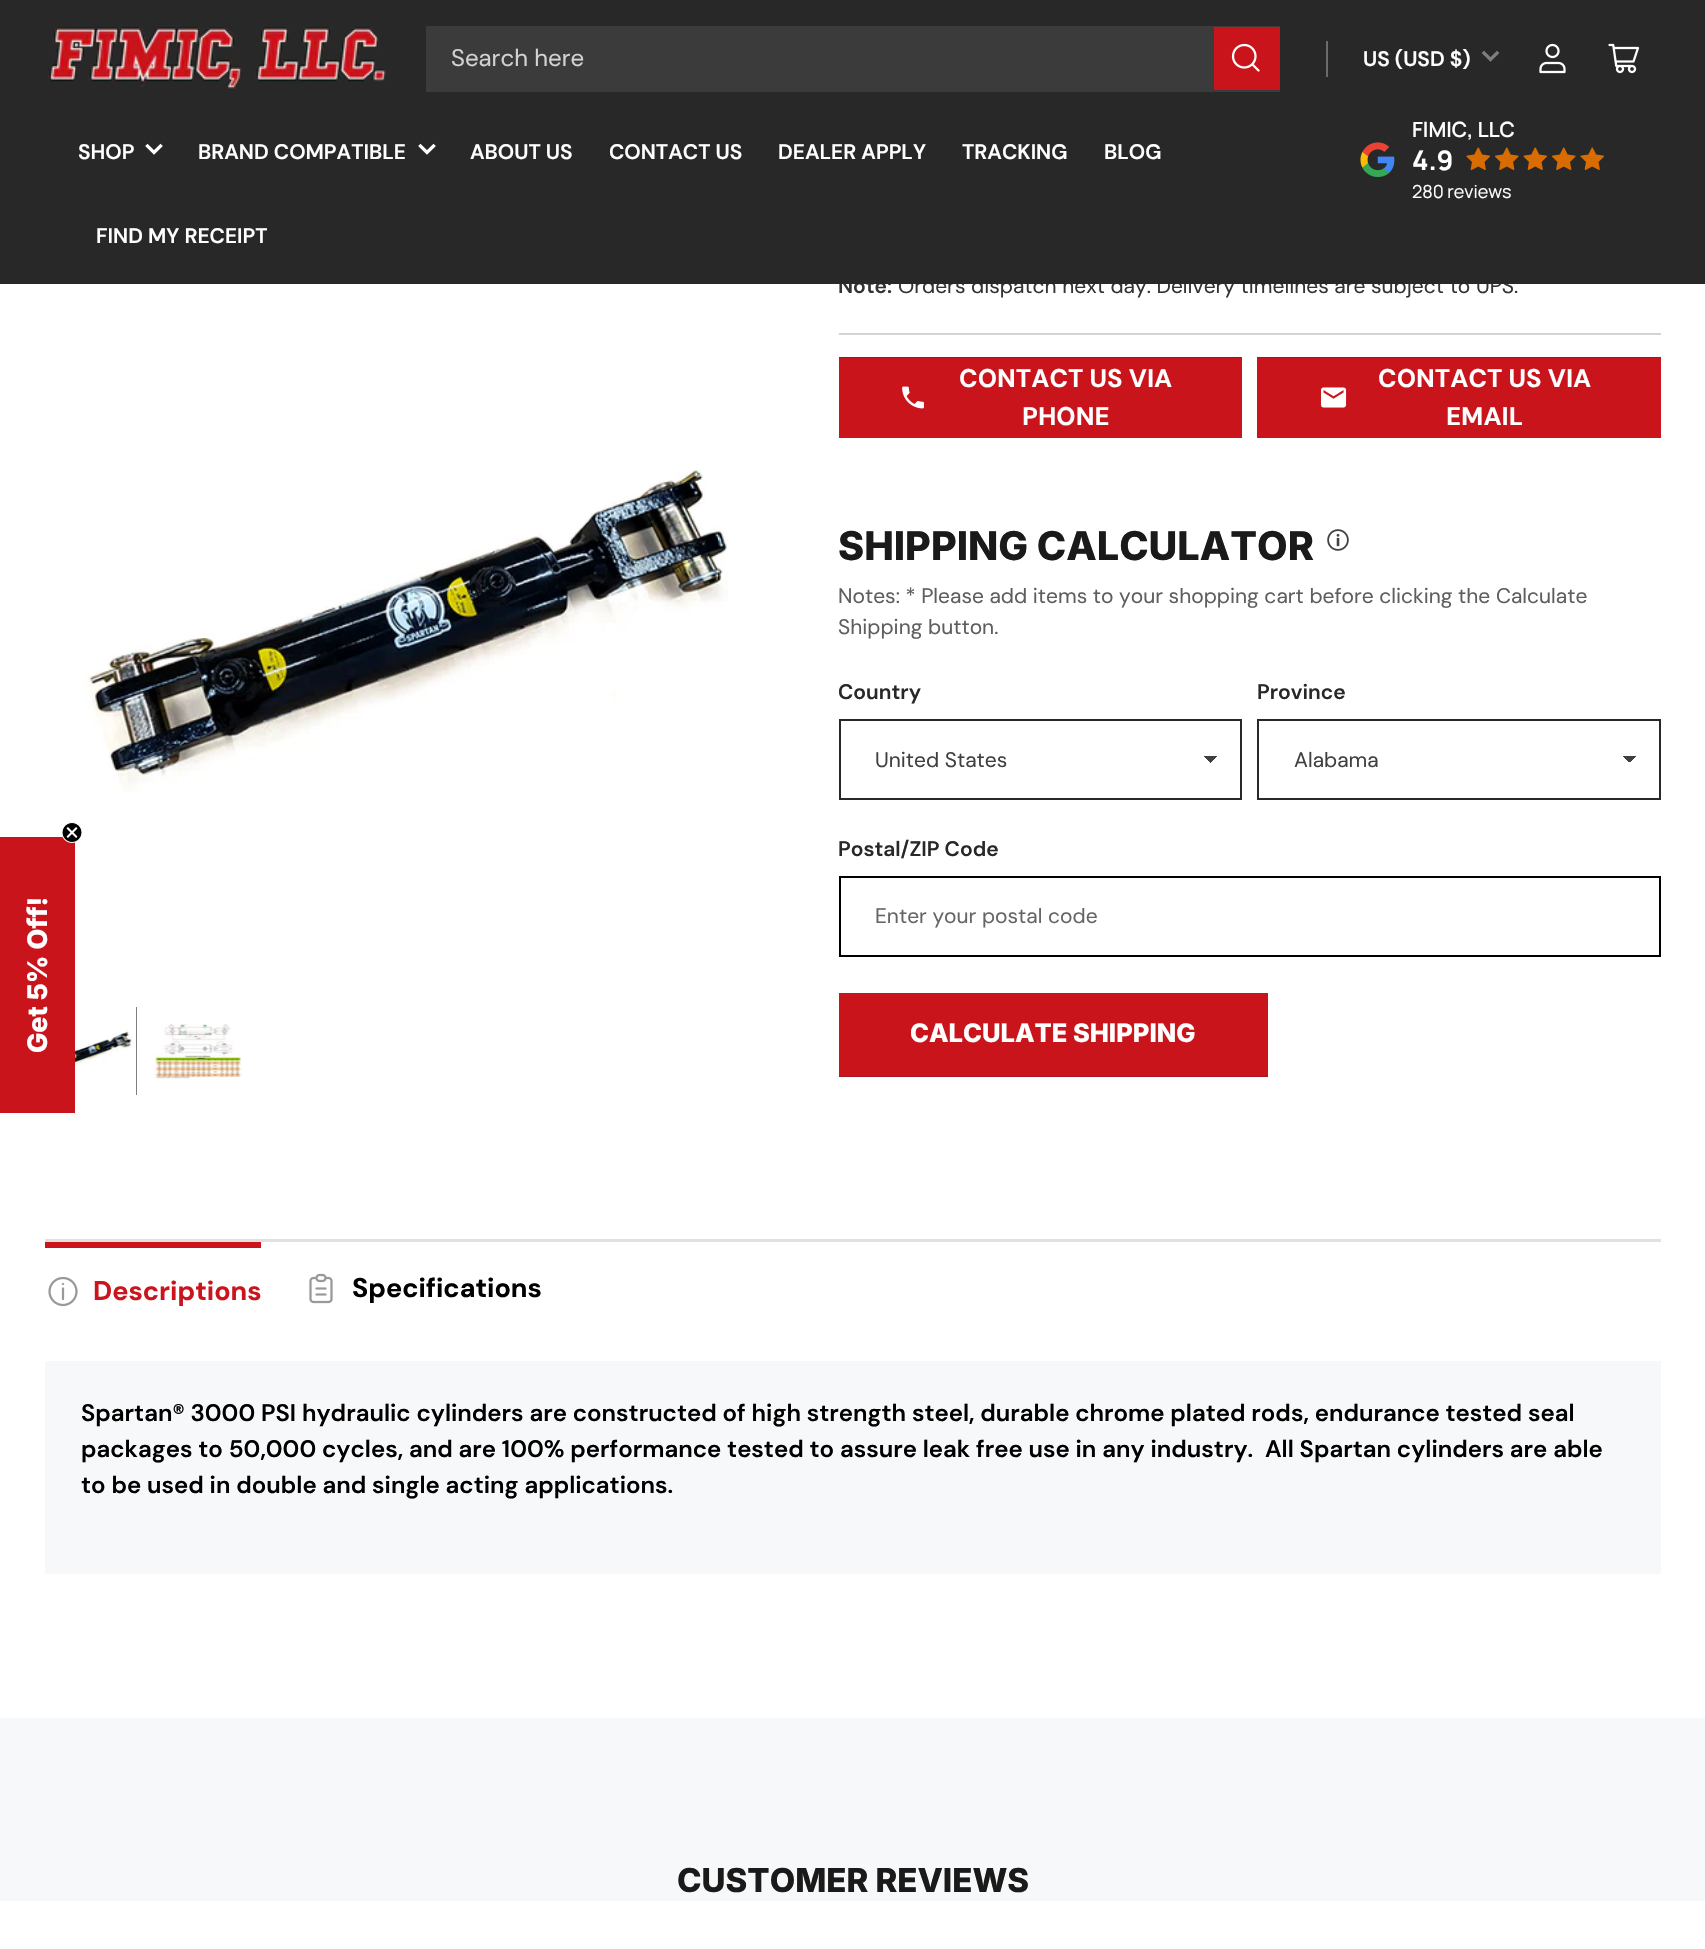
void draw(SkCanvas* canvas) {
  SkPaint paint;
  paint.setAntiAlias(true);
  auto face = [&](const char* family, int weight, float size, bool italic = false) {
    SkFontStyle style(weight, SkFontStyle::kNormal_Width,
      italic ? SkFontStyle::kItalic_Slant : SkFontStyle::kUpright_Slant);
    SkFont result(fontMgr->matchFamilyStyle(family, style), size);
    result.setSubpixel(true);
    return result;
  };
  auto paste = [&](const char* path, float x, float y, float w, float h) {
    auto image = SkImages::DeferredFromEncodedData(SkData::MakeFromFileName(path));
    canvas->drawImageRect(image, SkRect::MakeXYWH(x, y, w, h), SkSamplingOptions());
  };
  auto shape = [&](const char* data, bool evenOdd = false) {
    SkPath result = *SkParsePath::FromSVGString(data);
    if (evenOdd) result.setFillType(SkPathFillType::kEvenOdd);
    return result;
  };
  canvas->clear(0xffffffff);
  paint.setStroke(true);
  paint.setStrokeWidth(2);
  paint.setColor(0xff000000);
  canvas->drawRect(SkRect::MakeXYWH(48, 1008, 88, 86), paint);
  paint.setStroke(false);
  paint.setColor(0xffca141c);
  canvas->drawRect(SkRect::MakeXYWH(0, 837, 75, 276), paint);
  paste("img/8.png", 62, 822, 20, 21);
  paste("img/9.png", 84, 470, 644, 322);
  paste("img/10.png", 75, 1007, 62, 88);
  paste("img/11.png", 153, 1023, 89, 56);
  paint.setColor(0xffd3d3d3);
  canvas->drawRect(SkRect::MakeXYWH(839, 333, 822, 2), paint);
  paint.setColor(0xffa9151c);
  canvas->drawRect(SkRect::MakeXYWH(839, 357, 403, 1), paint);
  canvas->save();
  canvas->clipRect(SkRect::MakeXYWH(839, 357, 403, 81));
  paint.setColor(0xffca141c);
  canvas->drawPath(shape("M754 358H1279L1326 439H801Z"), paint);
  canvas->restore();
  paste("img/12.png", 902, 386, 22, 23);
  paint.setColor(0xffa9151c);
  canvas->drawRect(SkRect::MakeXYWH(1257, 357, 404, 1), paint);
  canvas->save();
  canvas->clipRect(SkRect::MakeXYWH(1257, 357, 404, 81));
  paint.setColor(0xffca141c);
  canvas->drawPath(shape("M1173 358H1698L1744 439H1220Z"), paint);
  canvas->restore();
  paste("img/13.png", 1321, 387, 26, 21);
  paste("img/14.png", 1327, 529, 22, 22);
  {
    const SkColor colors[] = {0xff404040, 0xffffffff};
    const float stops[] = {0.5f, 0.5f};
    const SkPoint ends[] = {{1211, 755}, {1218, 763}};
    paint.setShader(SkGradientShader::MakeLinear(ends, colors, stops, 2, SkTileMode::kClamp));
    paint.setAlpha(255);
  }
  canvas->drawRect(SkRect::MakeXYWH(1211, 756, 6, 8), paint);
  {
    const SkColor colors[] = {0xffffffff, 0xff404040};
    const float stops[] = {0.5f, 0.5f};
    const SkPoint ends[] = {{1203, 763}, {1211, 755}};
    paint.setShader(SkGradientShader::MakeLinear(ends, colors, stops, 2, SkTileMode::kClamp));
    paint.setAlpha(255);
  }
  canvas->drawRect(SkRect::MakeXYWH(1203, 756, 8, 7), paint);
  paint.setStroke(true);
  paint.setShader(nullptr);
  paint.setColor(0xff282828);
  canvas->drawRect(SkRect::MakeXYWH(840, 720, 401, 79), paint);
  paint.setStroke(false);
  {
    const SkColor colors[] = {0xff404040, 0xffffffff};
    const float stops[] = {0.5f, 0.5f};
    const SkPoint ends[] = {{1629, 755}, {1637, 763}};
    paint.setShader(SkGradientShader::MakeLinear(ends, colors, stops, 2, SkTileMode::kClamp));
    paint.setAlpha(255);
  }
  canvas->drawRect(SkRect::MakeXYWH(1629, 756, 8, 6), paint);
  {
    const SkColor colors[] = {0xffffffff, 0xff404040};
    const float stops[] = {0.5f, 0.5f};
    const SkPoint ends[] = {{1622, 763}, {1629, 755}};
    paint.setShader(SkGradientShader::MakeLinear(ends, colors, stops, 2, SkTileMode::kClamp));
    paint.setAlpha(255);
  }
  canvas->drawRect(SkRect::MakeXYWH(1623, 756, 6, 8), paint);
  paint.setStroke(true);
  paint.setShader(nullptr);
  paint.setColor(0xff282828);
  canvas->drawRect(SkRect::MakeXYWH(1258, 720, 402, 79), paint);
  paint.setColor(0xff000000);
  canvas->drawRect(SkRect::MakeXYWH(840, 877, 820, 79), paint);
  canvas->save();
  canvas->clipRect(SkRect::MakeXYWH(839, 993, 429, 84));
  paint.setStroke(false);
  paint.setColor(0xffca141c);
  canvas->drawPath(shape("M749 992H1308L1356 1076H798Z"), paint);
  canvas->restore();
  {
    const struct { float x, y, w, h; SkColor color; } items[] = {
      {839, 1076, 429, 1, 0xffa9151c},
      {45, 1239, 1616, 3, 0xffe1e1e1},
      {45, 1242, 216, 6, 0xffca141c},
    };
    for (auto [x, y, w, h, color] : items) {
      paint.setColor(color);
      canvas->drawRect(SkRect::MakeXYWH(x, y, w, h), paint);
    }
  }
  paste("img/15.png", 48, 1276, 30, 31);
  paste("img/16.png", 309, 1273, 24, 31);
  paint.setColor(0xfff7f8f9);
  canvas->drawRect(SkRect::MakeXYWH(45, 1361, 1616, 213), paint);
  canvas->drawRect(SkRect::MakeXYWH(0, 1718, 1705, 183), paint);
  auto f0 = face("Inter", 800, 27);
  paint.setColor(0xffffffff);
  canvas->save();
  canvas->rotate(-90, 47, 1053);
  canvas->drawString("Get 5% Off!", 47, 1053, f0, paint);
  canvas->restore();
  auto f1 = face("DM Sans", 600, 21);
  paint.setColor(0xff333333);
  canvas->drawString("Note:", 838, 293, f1, paint);
  auto f2 = face("DM Sans", 400, 21);
  canvas->drawString("Orders dispatch next day. Delivery timelines are subject to UPS.", 898, 293, f2, paint);
  paint.setColor(0xff282828);
  canvas->drawRect(SkRect::MakeXYWH(0, 0, 1705, 284), paint);
  paste("img/4.png", 1608, 43, 32, 31);
  paint.setColor(0xff3b3b3b);
  canvas->drawRect(SkRect::MakeXYWH(426, 26, 854, 66), paint);
  paint.setColor(0xffca141c);
  canvas->drawRect(SkRect::MakeXYWH(1214, 27, 66, 63), paint);
  paste("img/2.png", 1231, 43, 29, 29);
  auto f3 = face("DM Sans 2", 400, 24);
  paint.setColor(0xffd1d2d3);
  canvas->drawString("Search here", 451, 66, f3, paint);
  paste("img/6.png", 1580, 147, 24, 23);
  paste("img/7.png", 1552, 147, 24, 23);
  paste("img/6.png", 1523, 147, 24, 23);
  paste("img/7.png", 1495, 147, 24, 23);
  paste("img/6.png", 1466, 147, 24, 23);
  auto f4 = face("Manrope", 600, 21);
  paint.setColor(0xffffffff);
  canvas->drawString("FIMIC, LLC", 1412, 137, f4, paint);
  auto f5 = face("Manrope", 400, 18);
  canvas->drawString("280 reviews", 1412, 198, f5, paint);
  auto f6 = face("Manrope", 700, 27);
  canvas->drawString("4.9", 1412, 170, f6, paint);
  paste("img/5.png", 1360, 142, 35, 35);
  {
    const struct { const char* s; float x, y; } items[] = {
      {"FIND MY RECEIPT", 96, 243},
      {"BLOG", 1104, 159},
      {"TRACKING", 962, 159},
      {"DEALER APPLY", 778, 159},
      {"CONTACT US", 609, 159},
      {"ABOUT US", 470, 159},
    };
    for (auto [s, x, y] : items) {
      canvas->drawString(s, x, y, f1, paint);
    }
  }
  paint.setStroke(true);
  paint.setStrokeWidth(3.3f);
  paint.setStrokeCap(SkPaint::kSquare_Cap);
  canvas->drawPath(shape("M433.5 146L427 152.5L420.5 146"), paint);
  paint.setStroke(false);
  canvas->drawString("BRAND COMPATIBLE", 198, 159, f1, paint);
  paint.setStroke(true);
  canvas->drawPath(shape("M160.5 146L154 152.5L147.5 146"), paint);
  paint.setStroke(false);
  canvas->drawString("SHOP", 78, 159, f1, paint);
  paste("img/3.png", 1539, 43, 27, 31);
  paint.setStroke(true);
  paint.setColor(0xff7e7e7e);
  canvas->drawPath(shape("M1497 53L1490.5 59.5L1484 53"), paint);
  paint.setStroke(false);
  paint.setColor(0xffffffff);
  canvas->drawString("US (USD $)", 1363, 66, f1, paint);
  paint.setColor(0xff6b6b6b);
  canvas->drawRect(SkRect::MakeXYWH(1326, 41, 2, 36), paint);
  paste("img/1.png", 48, 27, 339, 63);
  auto f7 = face("DM Sans 2", 700, 25.5f);
  paint.setColor(0xffffffff);
  {
    const struct { const char* s; float x, y; } items[] = {
      {"CONTACT US VIA", 959, 387},
      {"PHONE", 1022, 425},
      {"CONTACT US VIA", 1378, 387},
      {"EMAIL", 1446, 425},
    };
    for (auto [s, x, y] : items) {
      canvas->drawString(s, x, y, f7, paint);
    }
  }
  auto f8 = face("Inter", 800, 39.6f);
  paint.setColor(0xff1a1a1a);
  canvas->drawString("SHIPPING CALCULATOR", 838, 560, f8, paint);
  paint.setColor(0xff5d5e5f);
  canvas->drawString("Notes: * Please add items to your shopping cart before clicking the Calculate", 838, 603, f2, paint);
  canvas->drawString("Shipping button.", 838, 634, f2, paint);
  paint.setColor(0xff282828);
  canvas->drawString("Country", 838, 699, f1, paint);
  paint.setColor(0xff404040);
  canvas->drawString("United States", 875, 767, f2, paint);
  paint.setColor(0xff282828);
  canvas->drawString("Province", 1257, 699, f1, paint);
  paint.setColor(0xff404040);
  canvas->drawString("Alabama", 1294, 767, f2, paint);
  paint.setColor(0xff282828);
  canvas->drawString("Postal/ZIP Code", 838, 856, f1, paint);
  paint.setColor(0xff666666);
  canvas->drawString("Enter your postal code", 875, 923, f2, paint);
  auto f9 = face("Inter", 800, 25.5f);
  paint.setColor(0xffffffff);
  canvas->drawString("CALCULATE SHIPPING", 910, 1042, f9, paint);
  auto f10 = face("DM Sans", 700, 27);
  paint.setColor(0xffca151c);
  canvas->drawString("Descriptions", 93, 1300, f10, paint);
  paint.setColor(0xff000000);
  canvas->drawString("Specifications", 352, 1297, f10, paint);
  auto f11 = face("DM Sans 2", 600, 24);
  {
    const struct { const char* s; float x, y; } items[] = {
      {"Spartan® 3000 PSI hydraulic cylinders are constructed of high strength steel, durable chrome plated rods, endurance tested seal", 81, 1421},
      {"packages to 50,000 cycles, and are 100% performance tested to assure leak free use in any industry.  All Spartan cylinders are able", 81, 1457},
      {"to be used in double and single acting applications.", 81, 1493},
    };
    for (auto [s, x, y] : items) {
      canvas->drawString(s, x, y, f11, paint);
    }
  }
  auto f12 = face("Inter", 800, 33);
  paint.setColor(0xff1a1a1a);
  canvas->drawString("CUSTOMER REVIEWS", 677, 1892, f12, paint);
}
